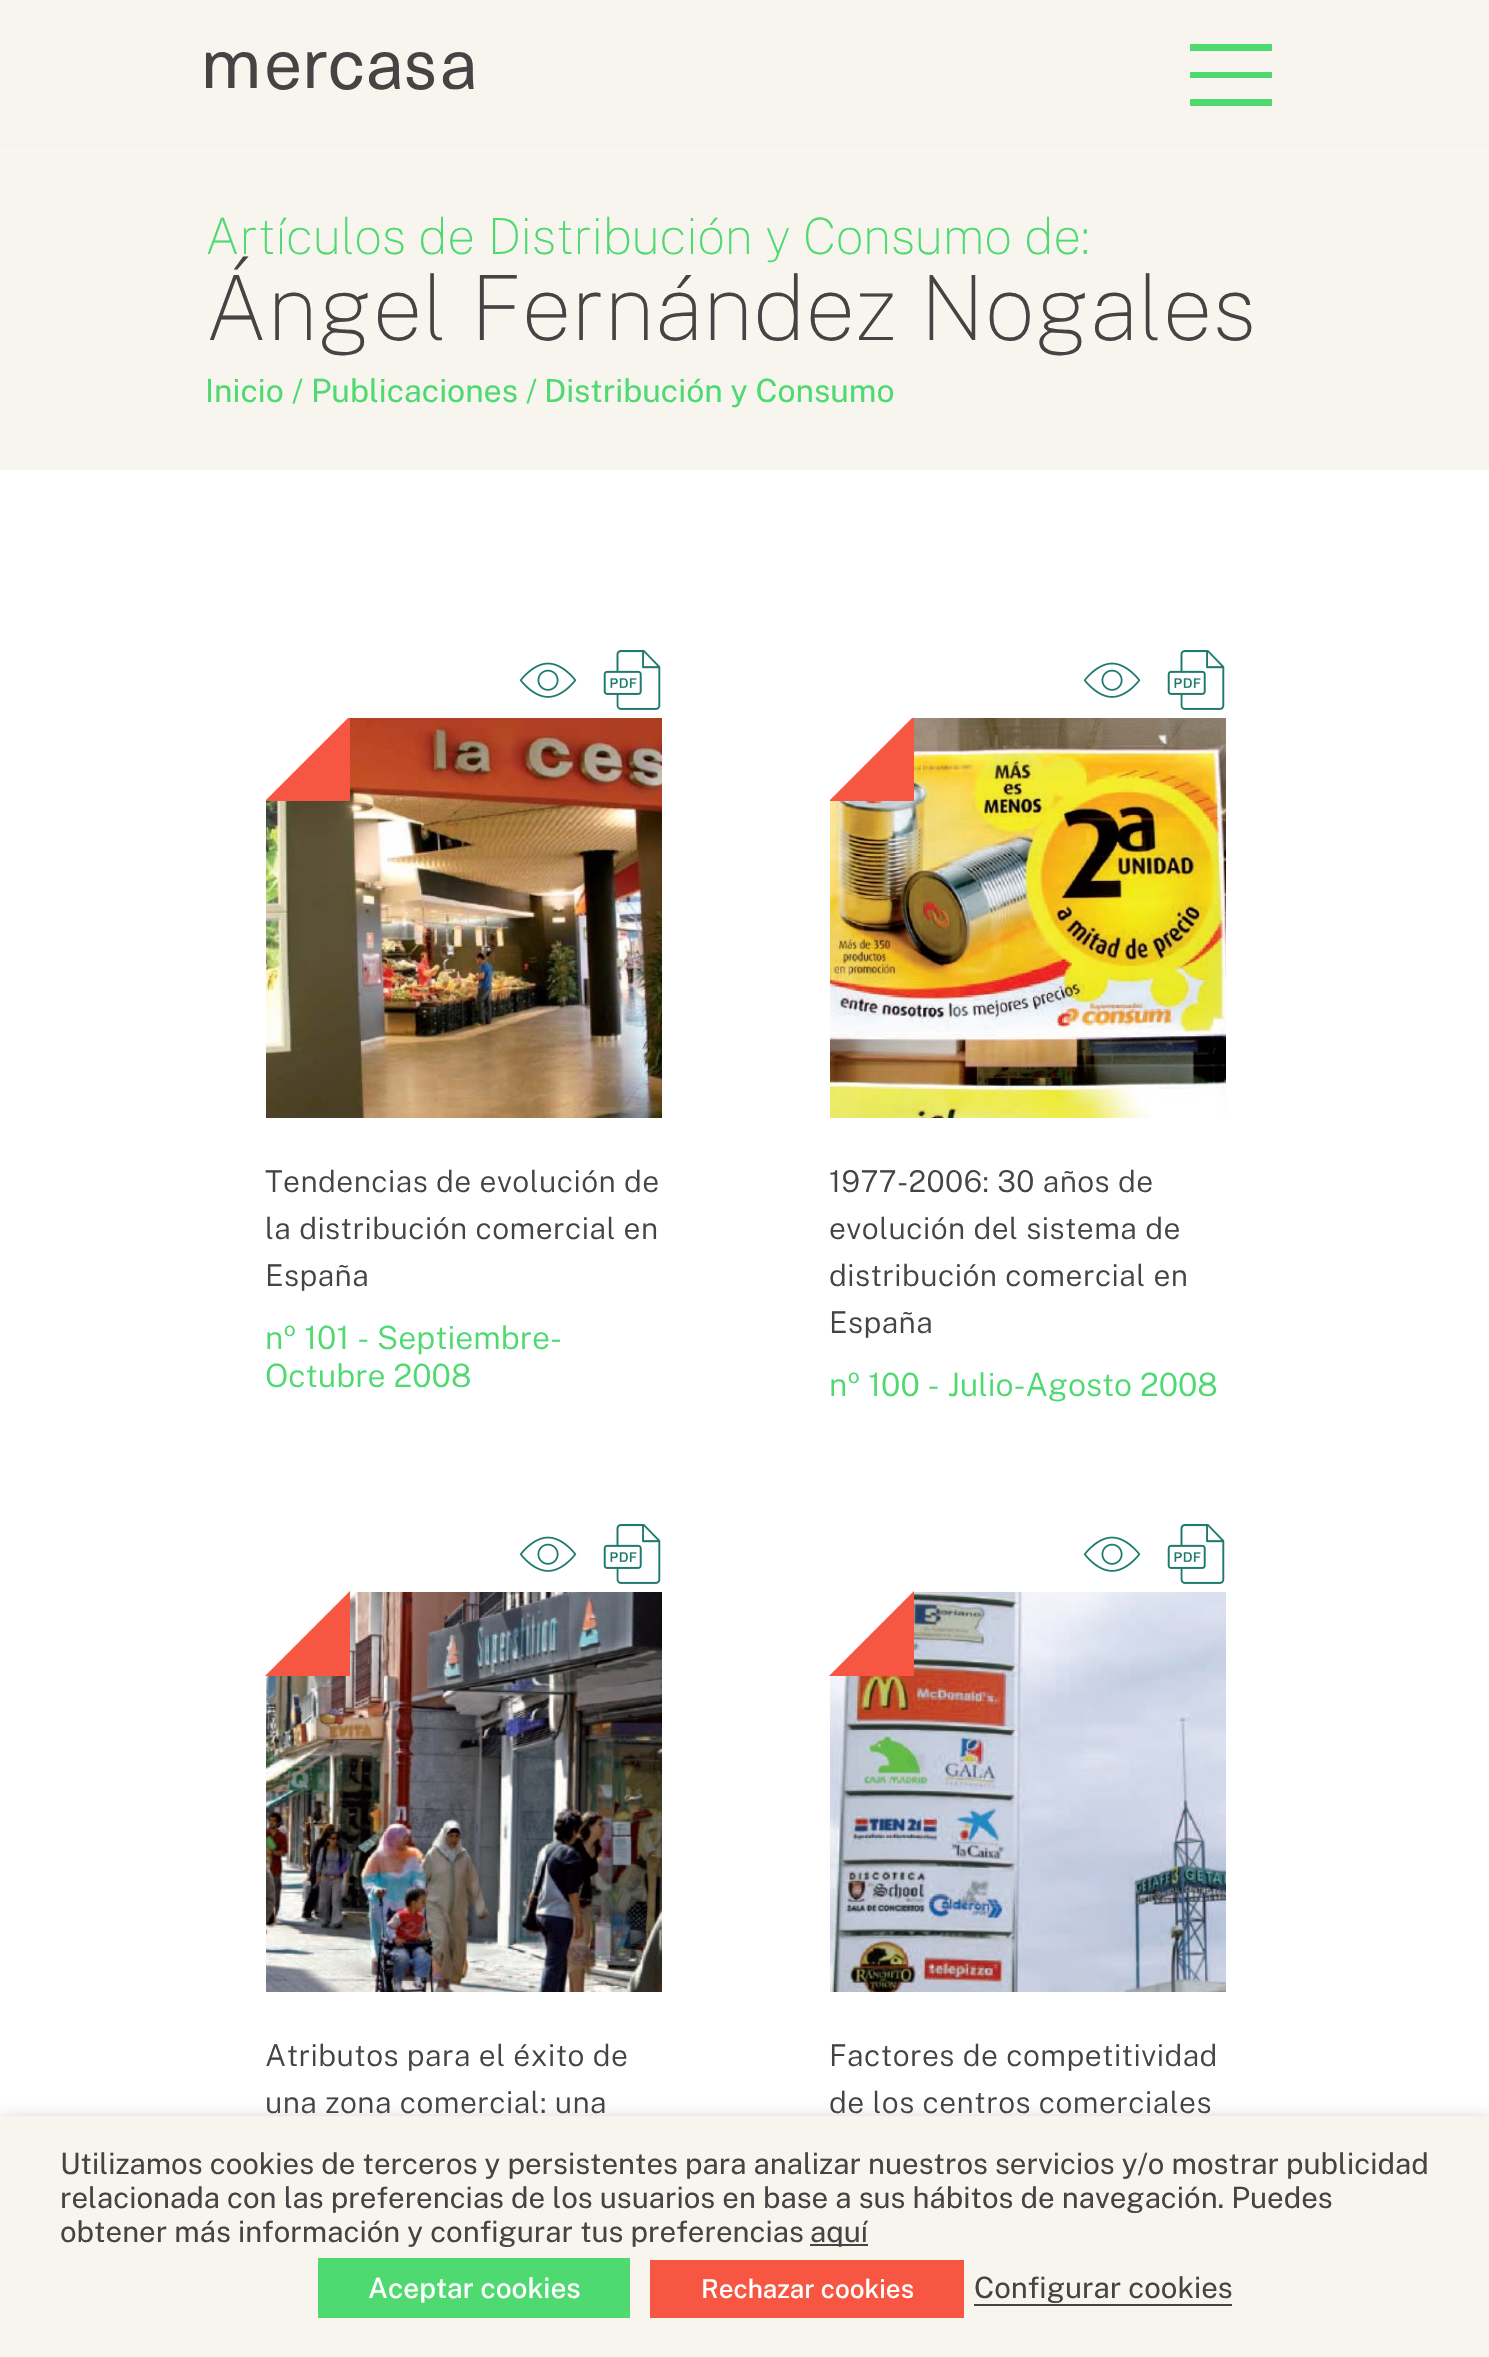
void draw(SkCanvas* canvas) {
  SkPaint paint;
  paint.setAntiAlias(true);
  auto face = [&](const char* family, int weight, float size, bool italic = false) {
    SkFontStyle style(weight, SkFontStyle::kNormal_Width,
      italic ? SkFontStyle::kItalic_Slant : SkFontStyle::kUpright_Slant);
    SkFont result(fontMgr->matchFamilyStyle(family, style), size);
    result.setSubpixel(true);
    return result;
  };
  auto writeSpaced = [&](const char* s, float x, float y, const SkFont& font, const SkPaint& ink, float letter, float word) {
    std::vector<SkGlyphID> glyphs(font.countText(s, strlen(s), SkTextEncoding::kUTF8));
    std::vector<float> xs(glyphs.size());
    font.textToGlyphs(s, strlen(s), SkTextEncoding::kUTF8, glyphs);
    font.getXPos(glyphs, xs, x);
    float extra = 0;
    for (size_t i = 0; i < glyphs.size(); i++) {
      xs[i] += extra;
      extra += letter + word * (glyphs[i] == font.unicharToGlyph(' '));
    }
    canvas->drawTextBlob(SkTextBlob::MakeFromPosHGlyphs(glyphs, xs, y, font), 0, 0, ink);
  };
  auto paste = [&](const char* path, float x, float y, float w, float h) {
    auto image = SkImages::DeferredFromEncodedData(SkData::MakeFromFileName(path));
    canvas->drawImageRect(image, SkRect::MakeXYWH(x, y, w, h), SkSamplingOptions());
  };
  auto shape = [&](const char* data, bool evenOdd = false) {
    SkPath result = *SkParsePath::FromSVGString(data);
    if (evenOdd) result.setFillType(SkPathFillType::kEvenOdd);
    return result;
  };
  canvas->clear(0xffffffff);
  paint.setColor(0xfff8f5ef);
  canvas->drawRect(SkRect::MakeXYWH(0, 0, 1489, 470), paint);
  paint.setColor(0xfff9f7f2);
  canvas->drawRect(SkRect::MakeXYWH(0, 150, 1489, 2), paint);
  paste("img/1.png", 206, 52, 268, 38);
  paint.setColor(0xff4ed971);
  canvas->drawPath(shape("M1272 99V106H1190V99ZM1272 72V78H1190V72ZM1272 44V51H1190V44Z"), paint);
  paste("img/2.png", 519, 662, 58, 36);
  paste("img/3.png", 603, 650, 58, 60);
  paste("img/4.png", 266, 718, 396, 400);
  paint.setColor(0xffffffff);
  canvas->drawRect(SkRect::MakeXYWH(266, 718, 82, 82), paint);
  canvas->save();
  canvas->clipRect(SkRect::MakeXYWH(266, 718, 396, 400));
  paint.setColor(0xfff75642);
  canvas->drawPath(shape("M265 801L350 716V801Z"), paint);
  canvas->restore();
  paste("img/2.png", 1083, 662, 58, 36);
  paste("img/3.png", 1167, 650, 58, 60);
  paste("img/5.png", 830, 718, 396, 400);
  paint.setColor(0xffffffff);
  canvas->drawRect(SkRect::MakeXYWH(830, 718, 82, 82), paint);
  canvas->save();
  canvas->clipRect(SkRect::MakeXYWH(830, 718, 396, 400));
  paint.setColor(0xfff75642);
  canvas->drawPath(shape("M829 801L914 716V801Z"), paint);
  canvas->restore();
  paste("img/2.png", 519, 1536, 58, 36);
  paste("img/3.png", 603, 1524, 58, 60);
  paste("img/6.png", 266, 1592, 396, 400);
  paint.setColor(0xffffffff);
  canvas->drawRect(SkRect::MakeXYWH(266, 1592, 83, 82), paint);
  paint.setColor(0xfff75642);
  canvas->drawPath(shape("M265 1676L350 1591V1676Z"), paint);
  paste("img/2.png", 1083, 1536, 58, 36);
  paste("img/3.png", 1167, 1524, 58, 60);
  paste("img/7.png", 830, 1592, 396, 400);
  paint.setColor(0xffffffff);
  canvas->drawRect(SkRect::MakeXYWH(830, 1592, 83, 82), paint);
  paint.setColor(0xfff75642);
  canvas->drawPath(shape("M829 1676L914 1591V1676Z"), paint);
  paint.setColor(0x80000000);
  paint.setMaskFilter(SkMaskFilter::MakeBlur(kNormal_SkBlurStyle, 10));
  canvas->drawRect(SkRect::MakeXYWH(0, 2126, 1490, 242), paint);
  paint.setMaskFilter(nullptr);
  {
    const struct { float x, y, w, h; SkColor color; } items[] = {
      {0, 2116, 1489, 241, 0xfff8f5ef},
      {810, 2244, 58, 2, 0xff444444},
      {318, 2258, 312, 60, 0xff4ed971},
      {650, 2260, 314, 58, 0xfff75642},
      {974, 2304, 258, 2, 0xff444444},
    };
    for (auto [x, y, w, h, color] : items) {
      paint.setColor(color);
      canvas->drawRect(SkRect::MakeXYWH(x, y, w, h), paint);
    }
  }
  auto f0 = face("Public Sans", 100, 50);
  paint.setColor(0xff4ed971);
  writeSpaced("Artículos de Distribución y Consumo de:", 205, 254, f0, paint, -0.3f, 0);
  auto f1 = face("Public Sans", 100, 90);
  paint.setColor(0xff444444);
  writeSpaced("Ángel Fernández Nogales", 205, 340, f1, paint, -0.3f, 0);
  auto f2 = face("Public Sans", 400, 32);
  paint.setColor(0xff4ed971);
  canvas->drawString("Inicio", 205, 402, f2, paint);
  auto f3 = face("Public Sans", 300, 32);
  canvas->drawString("/", 292, 402, f3, paint);
  canvas->drawString("Publicaciones", 311, 402, f2, paint);
  canvas->drawString("/", 526, 402, f3, paint);
  canvas->drawString("Distribución y Consumo", 544, 402, f2, paint);
  auto f4 = face("Public Sans", 300, 30);
  paint.setColor(0xff444444);
  {
    const struct { const char* s; float x, y; } items[] = {
      {"Tendencias de evolución de", 265, 1192},
      {"la distribución comercial en", 265, 1239},
      {"España", 265, 1286},
    };
    for (auto [s, x, y] : items) {
      writeSpaced(s, x, y, f4, paint, 0.45f, 0);
    }
  }
  paint.setColor(0xff4ed971);
  canvas->drawString("nº 101 - Septiembre-", 265, 1349, f3, paint);
  canvas->drawString("Octubre 2008", 265, 1387, f3, paint);
  paint.setColor(0xff444444);
  {
    const struct { const char* s; float x, y; } items[] = {
      {"1977-2006: 30 años de", 829, 1192},
      {"evolución del sistema de", 829, 1239},
      {"distribución comercial en", 829, 1286},
      {"España", 829, 1333},
    };
    for (auto [s, x, y] : items) {
      writeSpaced(s, x, y, f4, paint, 0.45f, 0);
    }
  }
  paint.setColor(0xff4ed971);
  canvas->drawString("nº 100 - Julio-Agosto 2008", 829, 1396, f3, paint);
  paint.setColor(0xff444444);
  {
    const struct { const char* s; float x, y; } items[] = {
      {"Atributos para el éxito de", 265, 2066},
      {"una zona comercial: una", 265, 2113},
      {"Factores de competitividad", 829, 2066},
      {"de los centros comerciales", 829, 2113},
    };
    for (auto [s, x, y] : items) {
      writeSpaced(s, x, y, f4, paint, 0.45f, 0);
    }
  }
  auto f5 = face("Public Sans", 400, 29.35f);
  {
    const struct { const char* s; float x, y; } items[] = {
      {"Utilizamos cookies de terceros y persistentes para analizar nuestros servicios y/o mostrar publicidad", 60, 2174},
      {"relacionada con las preferencias de los usuarios en base a sus hábitos de navegación. Puedes", 60, 2208},
      {"obtener más información y configurar tus preferencias", 60, 2242},
      {"aquí", 810, 2242},
    };
    for (auto [s, x, y] : items) {
      canvas->drawString(s, x, y, f5, paint);
    }
  }
  auto f6 = face("Public Sans", 500, 28);
  paint.setColor(0xffffffff);
  canvas->drawString("Aceptar cookies", 368, 2298, f6, paint);
  auto f7 = face("Public Sans", 500, 26);
  canvas->drawString("Rechazar cookies", 701, 2298, f7, paint);
  paint.setColor(0xff444444);
  canvas->drawString("Configurar cookies", 974, 2298, f5, paint);
}
